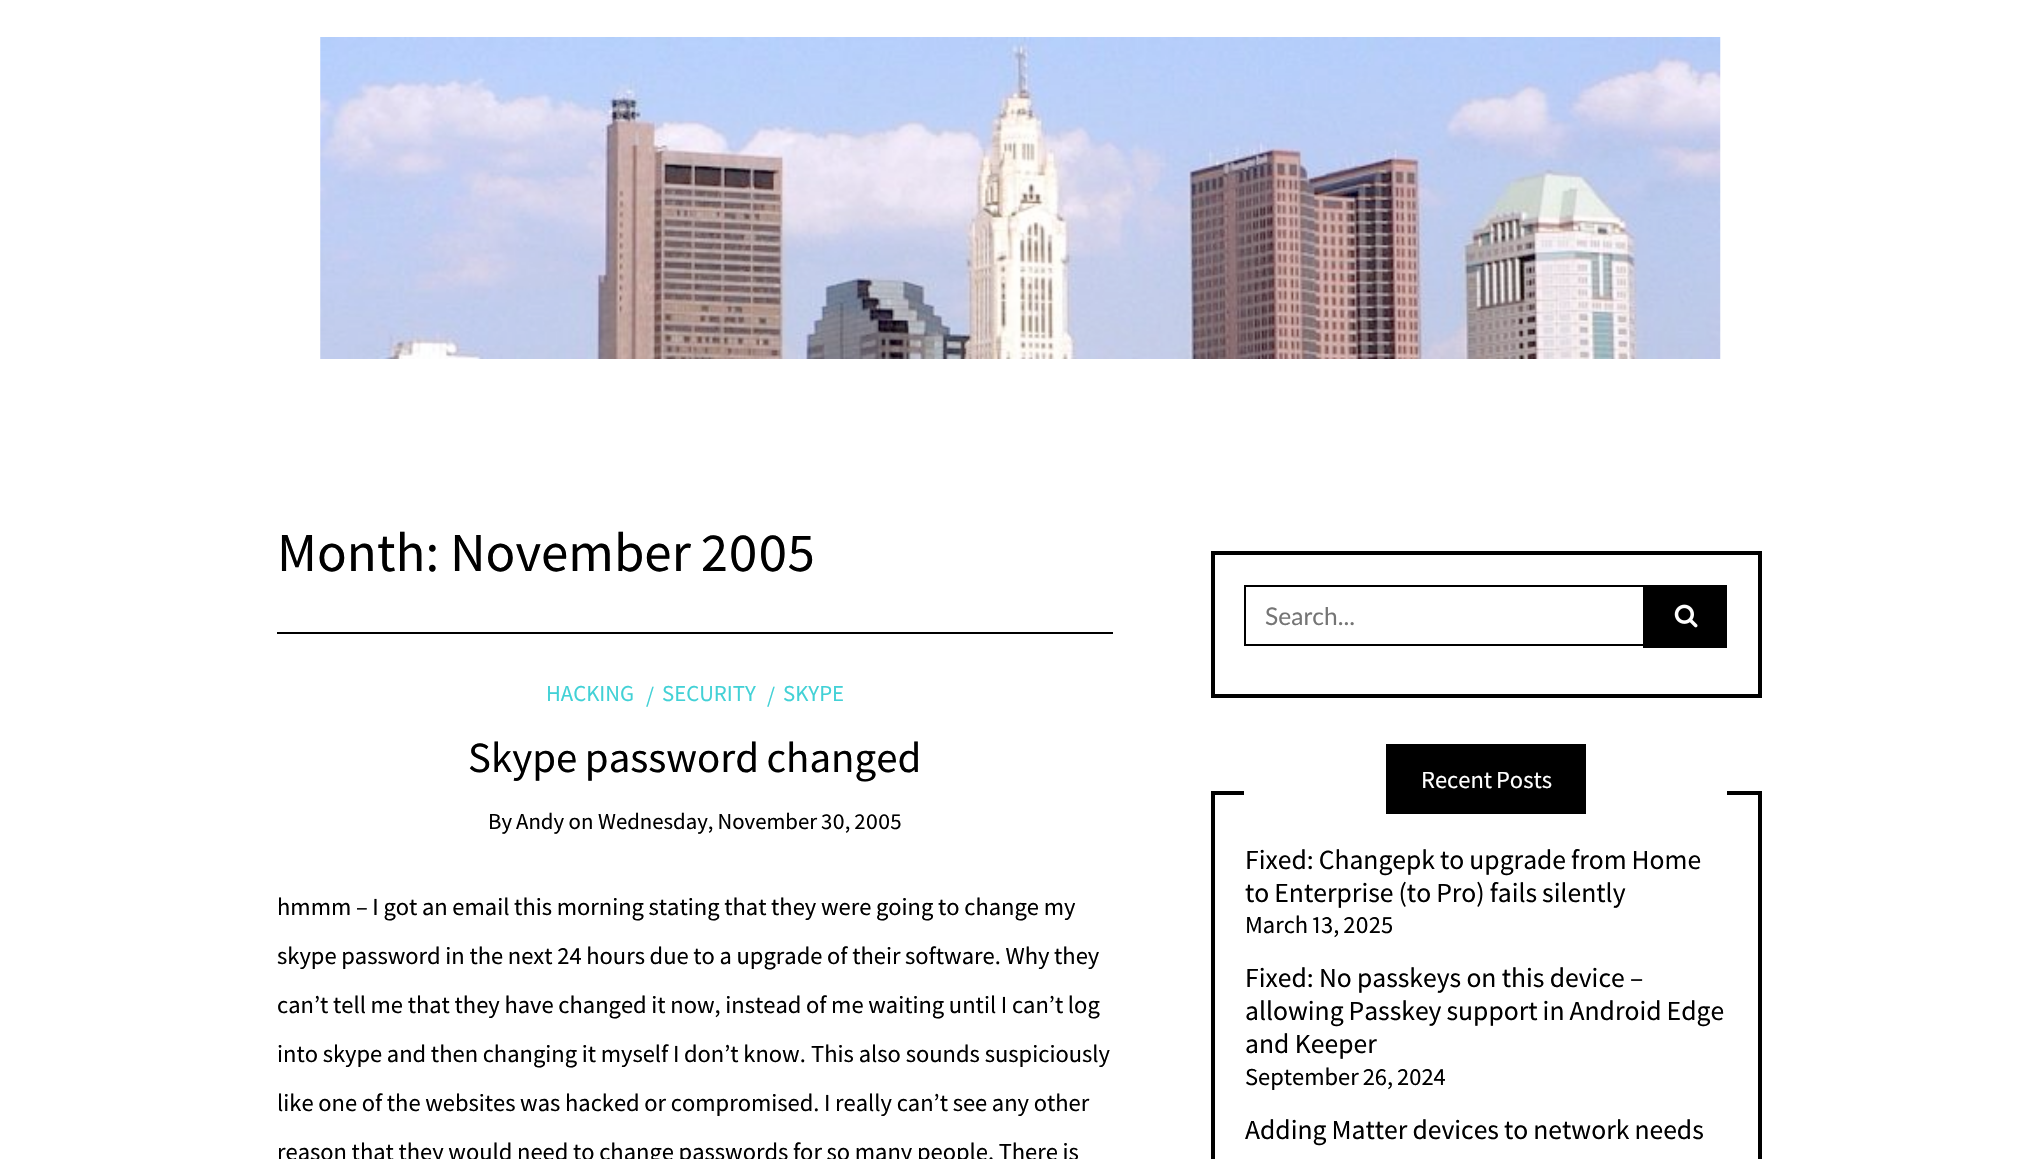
void draw(SkCanvas* canvas) {
  SkPaint paint;
  paint.setAntiAlias(true);
  auto face = [&](const char* family, int weight, float size, bool italic = false) {
    SkFontStyle style(weight, SkFontStyle::kNormal_Width,
      italic ? SkFontStyle::kItalic_Slant : SkFontStyle::kUpright_Slant);
    SkFont result(fontMgr->matchFamilyStyle(family, style), size);
    result.setSubpixel(true);
    return result;
  };
  auto writeSpaced = [&](const char* s, float x, float y, const SkFont& font, const SkPaint& ink, float letter, float word) {
    std::vector<SkGlyphID> glyphs(font.countText(s, strlen(s), SkTextEncoding::kUTF8));
    std::vector<float> xs(glyphs.size());
    font.textToGlyphs(s, strlen(s), SkTextEncoding::kUTF8, glyphs);
    font.getXPos(glyphs, xs, x);
    float extra = 0;
    for (size_t i = 0; i < glyphs.size(); i++) {
      xs[i] += extra;
      extra += letter + word * (glyphs[i] == font.unicharToGlyph(' '));
    }
    canvas->drawTextBlob(SkTextBlob::MakeFromPosHGlyphs(glyphs, xs, y, font), 0, 0, ink);
  };
  auto paste = [&](const char* path, float x, float y, float w, float h) {
    auto image = SkImages::DeferredFromEncodedData(SkData::MakeFromFileName(path));
    canvas->drawImageRect(image, SkRect::MakeXYWH(x, y, w, h), SkSamplingOptions());
  };
  canvas->clear(0xffffffff);
  paste("img/1.png", 320, 37, 1401, 322);
  paint.setColor(0xff000000);
  canvas->drawRect(SkRect::MakeXYWH(277, 632, 836, 2), paint);
  paint.setStroke(true);
  paint.setStrokeWidth(4);
  canvas->drawRect(SkRect::MakeXYWH(1213, 553, 547, 143), paint);
  paint.setStrokeWidth(2);
  canvas->drawRect(SkRect::MakeXYWH(1245, 586, 481, 59), paint);
  paint.setStroke(false);
  canvas->drawRect(SkRect::MakeXYWH(1643, 587, 84, 61), paint);
  paste("img/2.png", 1674, 604, 24, 24);
  paint.setStroke(true);
  paint.setStrokeWidth(4);
  canvas->drawRect(SkRect::MakeXYWH(1213, 793, 547, 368), paint);
  paint.setStroke(false);
  paint.setColor(0xffffffff);
  canvas->drawRect(SkRect::MakeXYWH(1244, 791, 483, 4), paint);
  paint.setColor(0xff000000);
  canvas->drawRect(SkRect::MakeXYWH(1386, 744, 200, 70), paint);
  auto f0 = face("Source Sans Pro", 400, 55);
  canvas->drawString("Month:", 277, 571, f0, paint);
  auto f1 = face("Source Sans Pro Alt", 400, 55);
  writeSpaced("November 2005", 450, 571, f1, paint, 0, -1);
  auto f2 = face("Source Sans Pro", 400, 22.75f);
  paint.setColor(0xff42d1d6);
  {
    const struct { const char* s; float x, y; } items[] = {
      {"HACKING", 546, 701},
      {"/", 646, 703},
      {"SECURITY", 662, 701},
      {"/", 767, 703},
      {"SKYPE", 783, 701},
    };
    for (auto [s, x, y] : items) {
      canvas->drawString(s, x, y, f2, paint);
    }
  }
  auto f3 = face("Source Sans Pro", 400, 42.9f);
  paint.setColor(0xff000000);
  writeSpaced("Skype password changed", 468, 772, f3, paint, 0, -1);
  canvas->drawString("By", 488, 829, f2, paint);
  canvas->drawString("Andy on", 516, 829, f2, paint);
  auto f4 = face("Source Sans Pro Alt", 400, 22.75f);
  writeSpaced("Wednesday, November 30, 2005", 598, 829, f4, paint, 0, -0.5f);
  auto f5 = face("Source Sans Pro", 400, 24.5f);
  {
    const struct { const char* s; float x, y; } items[] = {
      {"hmmm – I got an email this morning stating that they were going to change my", 277, 915},
      {"skype password in the next 24 hours due to a upgrade of their software. Why they", 277, 964},
      {"can’t tell me that they have changed it now, instead of me waiting until I can’t log", 277, 1013},
      {"into skype and then changing it myself I don’t know.", 277, 1062},
    };
    for (auto [s, x, y] : items) {
      writeSpaced(s, x, y, f5, paint, 0, -0.25f);
    }
  }
  canvas->drawString("This also sounds suspiciously", 811, 1062, f5, paint);
  writeSpaced("like one of the websites was hacked or compromised. I really can’t see any other", 277, 1111, f5, paint, 0, -0.25f);
  writeSpaced("reason that they would need to change passwords for so many people. There is", 277, 1160, f5, paint, 0, -0.25f);
  auto f6 = face("Lato", 400, 24.5f);
  paint.setColor(0xff757575);
  canvas->drawString("Search...", 1265, 625, f6, paint);
  paint.setColor(0xffffffff);
  writeSpaced("Recent Posts", 1421, 788, f5, paint, 0, -1);
  auto f7 = face("Source Sans Pro", 400, 27.6f);
  paint.setColor(0xff000000);
  writeSpaced("Fixed: Changepk to upgrade from Home", 1245, 869, f7, paint, 0, -0.5f);
  writeSpaced("to Enterprise (to Pro) fails silently", 1245, 902, f7, paint, 0, -0.5f);
  auto f8 = face("Source Sans Pro Alt", 400, 24.5f);
  writeSpaced("March 13, 2025", 1245, 933, f8, paint, 0, -1);
  writeSpaced("Fixed: No passkeys on this device –", 1245, 987, f7, paint, 0, -0.25f);
  writeSpaced("allowing Passkey support in Android Edge", 1245, 1020, f7, paint, 0, -0.5f);
  canvas->drawString("and Keeper", 1245, 1053, f7, paint);
  writeSpaced("September 26, 2024", 1245, 1085, f5, paint, 0, -1);
  writeSpaced("Adding Matter devices to network needs", 1245, 1139, f7, paint, 0, -0.5f);
}
